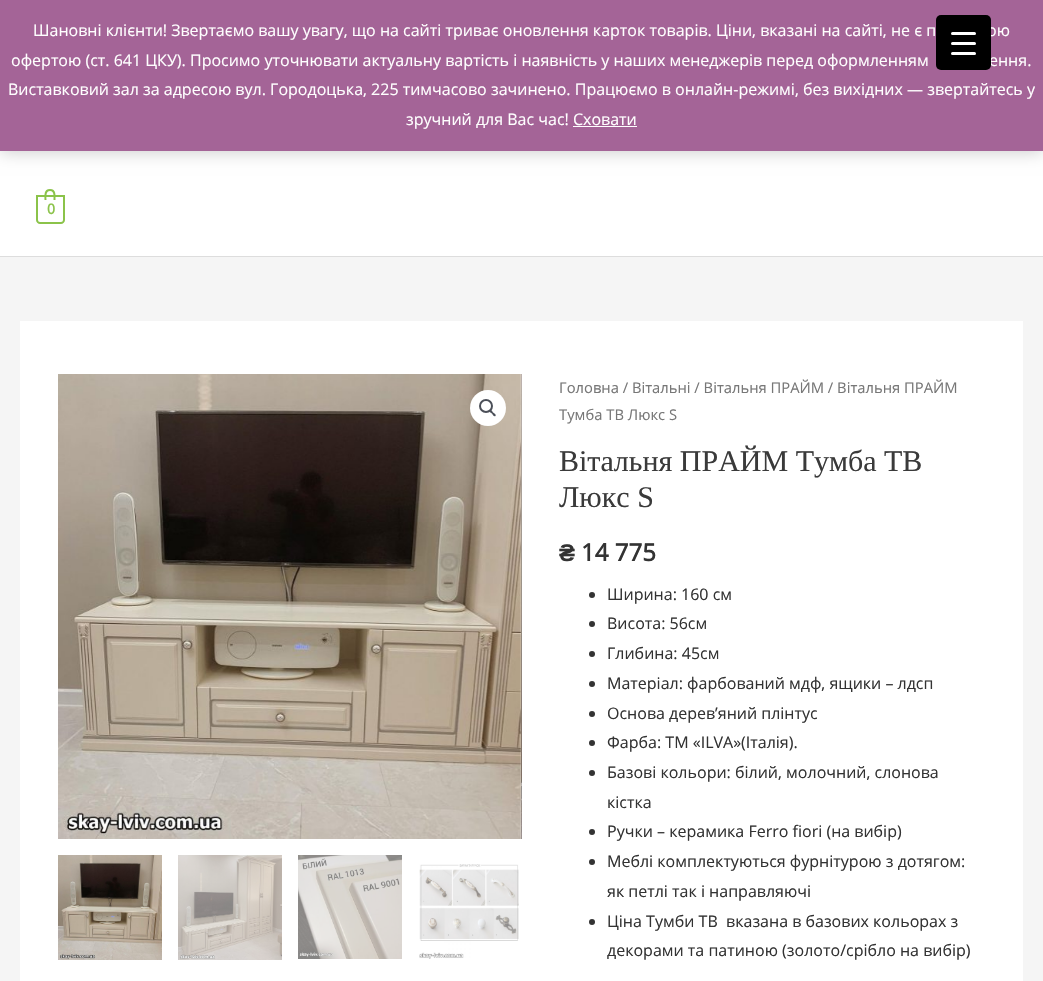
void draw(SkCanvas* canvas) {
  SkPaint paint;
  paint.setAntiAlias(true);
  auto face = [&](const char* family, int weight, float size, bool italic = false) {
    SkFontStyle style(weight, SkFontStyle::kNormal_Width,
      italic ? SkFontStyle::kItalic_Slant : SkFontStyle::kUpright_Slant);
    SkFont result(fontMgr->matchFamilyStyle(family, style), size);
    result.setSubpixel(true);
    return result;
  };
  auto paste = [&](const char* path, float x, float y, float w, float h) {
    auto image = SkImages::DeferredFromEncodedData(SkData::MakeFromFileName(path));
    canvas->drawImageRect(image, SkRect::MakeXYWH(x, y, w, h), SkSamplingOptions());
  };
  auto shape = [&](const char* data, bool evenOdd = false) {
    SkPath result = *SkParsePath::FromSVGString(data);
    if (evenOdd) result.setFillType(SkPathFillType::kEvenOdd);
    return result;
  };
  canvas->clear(0xfff5f5f5);
  paint.setColor(0xffffffff);
  canvas->drawRect(SkRect::MakeXYWH(0, 151, 1043, 105), paint);
  paint.setColor(0x33000000);
  paint.setMaskFilter(SkMaskFilter::MakeBlur(kNormal_SkBlurStyle, 8));
  canvas->drawRect(SkRect::MakeXYWH(0, 1, 1043, 151), paint);
  paint.setMaskFilter(nullptr);
  {
    const struct { float x, y, w, h; SkColor color; } items[] = {
      {0, 0, 1043, 151, 0xffa46497},
      {573, 126, 64, 1, 0xffffffff},
      {0, 256, 1043, 1, 0xffdddddd},
    };
    for (auto [x, y, w, h, color] : items) {
      paint.setColor(color);
      canvas->drawRect(SkRect::MakeXYWH(x, y, w, h), paint);
    }
  }
  paint.setStroke(true);
  paint.setStrokeWidth(2);
  paint.setColor(0xff8bc34a);
  canvas->drawPath(shape("M37 196H64V220C64 221.5 62.5 223 61 223H40C38.5 223 37 221.5 37 220Z"), paint);
  paint.setStroke(false);
  canvas->drawPath(shape("M50 189C56.5 189 55.5 195.5 55.5 200H44.5C44.5 195.5 43.5 189 50 189ZM50 191C54.5 191 53.5 197 53.5 200H46.5C46.5 197 45.5 191 50 191Z", true), paint);
  paint.setColor(0xffffffff);
  canvas->drawRect(SkRect::MakeXYWH(20, 321, 1003, 660), paint);
  paste("img/1.png", 58, 374, 463, 465);
  paste("img/2.png", 521, 374, 1, 465);
  canvas->drawCircle(488, 408, 18, paint);
  paint.setStroke(true);
  paint.setColor(0xff4b4f58);
  canvas->drawCircle(486, 406, 6, paint);
  paint.setStroke(false);
  canvas->drawPath(shape("M489.5 410C491 409 492.5 411.5 493 412.5C494 413 496.5 414.5 495.5 416C494 417 492.5 414.5 492 413.5C491 413 488.5 411.5 489.5 410Z"), paint);
  paste("img/3.png", 58, 855, 104, 105);
  paste("img/4.png", 178, 855, 104, 105);
  paste("img/5.png", 298, 855, 104, 104);
  paste("img/6.png", 419, 864, 100, 95);
  paint.setColor(0xff333333);
  canvas->drawCircle(592, 595, 3, paint);
  canvas->drawCircle(592, 624, 3, paint);
  canvas->drawCircle(592, 654, 3, paint);
  canvas->drawCircle(592, 684, 3, paint);
  canvas->drawCircle(592, 714, 3, paint);
  canvas->drawCircle(592, 743, 3, paint);
  canvas->drawCircle(592, 773, 3, paint);
  canvas->drawCircle(592, 832, 3, paint);
  canvas->drawCircle(592, 862, 3, paint);
  canvas->drawCircle(592, 922, 3, paint);
  auto f0 = face("Open Sans", 400, 16);
  paint.setColor(0xffffffff);
  {
    const struct { const char* s; float x, y; } items[] = {
      {"Шановні клієнти! Звертаємо вашу увагу, що на сайті триває оновлення карток товарів. Ціни, вказані на сайті, не є п", 33, 36},
      {"ою", 987, 36},
      {"офертою (ст. 641 ЦКУ). Просимо уточнювати актуальну вартість і наявність у наших менеджерів перед оформленням", 11, 66},
      {"ення.", 989, 66},
    };
    for (auto [s, x, y] : items) {
      canvas->drawString(s, x, y, f0, paint);
    }
  }
  paint.setColor(0xff000000);
  canvas->drawRoundRect(SkRect::MakeXYWH(936, 15, 55, 55), 5, 5, paint);
  paint.setColor(0xffffffff);
  canvas->drawRoundRect(SkRect::MakeXYWH(951, 32, 25, 3), 1.5f, 1.5f, paint);
  canvas->drawRoundRect(SkRect::MakeXYWH(951, 52, 25, 3), 1.5f, 1.5f, paint);
  canvas->drawRoundRect(SkRect::MakeXYWH(951, 42, 25, 3), 1.5f, 1.5f, paint);
  canvas->drawString("Виставковий зал за адресою вул. Городоцька, 225 тимчасово зачинено. Працюємо в онлайн-режимі, без вихідних — звертайтесь у", 8, 95, f0, paint);
  canvas->drawString("зручний для Вас час! Сховати", 406, 125, f0, paint);
  auto f1 = face("Open Sans", 700, 14);
  paint.setColor(0xff8bc34a);
  canvas->drawString("0", 47, 214, f1, paint);
  auto f2 = face("Open Sans", 400, 14.75f);
  paint.setColor(0xff777777);
  canvas->drawString("Головна / Вітальні / Вітальня ПРАЙМ / Вітальня ПРАЙМ", 559, 393, f2, paint);
  canvas->drawString("Тумба ТВ Люкc S", 559, 420, f2, paint);
  auto f3 = face("Liberation Serif", 400, 30);
  paint.setColor(0xff3a3a3a);
  canvas->drawString("Вітальня ПРАЙМ Тумба ТВ", 559, 471, f3, paint);
  canvas->drawString("Люкc S", 559, 507, f3, paint);
  auto f4 = face("Liberation Sans", 700, 24);
  paint.setColor(0xff333333);
  canvas->drawString("₴", 559, 561, f4, paint);
  auto f5 = face("Open Sans", 700, 24);
  canvas->drawString("14 775", 581, 561, f5, paint);
  {
    const struct { const char* s; float x, y; } items[] = {
      {"Ширина: 160 см", 607, 600},
      {"Висота: 56см", 607, 629},
      {"Глибина: 45см", 607, 659},
      {"Матеріал: фарбований мдф, ящики – лдсп", 607, 689},
      {"Основа дерев’яний плінтус", 607, 719},
      {"Фарба: ТМ «ILVA»(Італія).", 607, 748},
      {"Базові кольори: білий, молочний, слонова", 607, 778},
      {"кістка", 607, 808},
      {"Ручки – керамика Ferro fiori (на вибір)", 607, 837},
      {"Меблі комплектуються фурнітурою з дотягом:", 607, 867},
      {"як петлі так і направляючі", 607, 897},
      {"Ціна Тумби ТВ  вказана в базових кольорах з", 607, 927},
      {"декорами та патиною (золото/срібло на вибір)", 607, 956},
    };
    for (auto [s, x, y] : items) {
      canvas->drawString(s, x, y, f0, paint);
    }
  }
}
